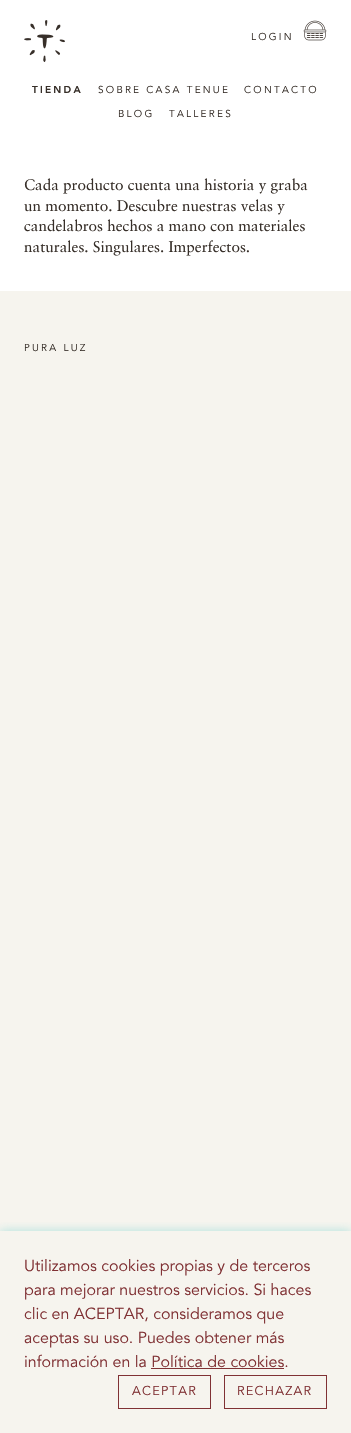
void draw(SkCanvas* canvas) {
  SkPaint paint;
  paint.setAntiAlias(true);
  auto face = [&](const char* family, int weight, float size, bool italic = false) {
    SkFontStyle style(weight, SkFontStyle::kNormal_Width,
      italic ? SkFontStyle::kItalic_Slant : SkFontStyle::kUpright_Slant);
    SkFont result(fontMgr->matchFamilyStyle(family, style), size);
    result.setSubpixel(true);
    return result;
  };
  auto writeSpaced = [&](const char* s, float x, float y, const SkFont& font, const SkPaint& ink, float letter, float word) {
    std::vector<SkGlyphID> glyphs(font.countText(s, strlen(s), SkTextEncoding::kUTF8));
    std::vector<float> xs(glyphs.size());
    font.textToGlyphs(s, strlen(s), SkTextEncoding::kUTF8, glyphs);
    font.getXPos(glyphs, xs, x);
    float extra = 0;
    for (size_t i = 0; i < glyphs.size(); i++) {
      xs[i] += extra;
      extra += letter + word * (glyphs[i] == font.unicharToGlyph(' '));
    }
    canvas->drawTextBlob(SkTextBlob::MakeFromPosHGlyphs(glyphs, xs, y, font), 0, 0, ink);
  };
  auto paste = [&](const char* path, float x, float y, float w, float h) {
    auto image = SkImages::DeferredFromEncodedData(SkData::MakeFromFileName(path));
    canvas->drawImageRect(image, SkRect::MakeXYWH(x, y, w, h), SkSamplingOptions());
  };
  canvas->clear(0xffffffff);
  paste("img/1.png", 24, 20, 41, 42);
  paste("img/2.png", 303, 20, 24, 21);
  paint.setColor(0xfff6f4ee);
  canvas->drawRect(SkRect::MakeXYWH(0, 291, 351, 1142), paint);
  canvas->save();
  canvas->clipRect(SkRect::MakeXYWH(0, 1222, 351, 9));
  paint.setColor(0x8064cbc9);
  paint.setMaskFilter(SkMaskFilter::MakeBlur(kNormal_SkBlurStyle, 5));
  canvas->drawRect(SkRect::MakeXYWH(0, 1231, 351, 202), paint);
  paint.setMaskFilter(nullptr);
  canvas->restore();
  paint.setColor(0xff803134);
  canvas->drawRect(SkRect::MakeXYWH(151, 1368, 133, 1), paint);
  paint.setStroke(true);
  paint.setStrokeWidth(1);
  canvas->drawRect(SkRect::MakeXYWH(118.5f, 1375.5f, 92, 33), paint);
  canvas->drawRect(SkRect::MakeXYWH(224.5f, 1375.5f, 102, 33), paint);
  auto f0 = face("Avenir", 400, 10);
  paint.setStroke(false);
  paint.setColor(0xff372f29);
  writeSpaced("LOGIN", 251, 40, f0, paint, 2.25f, 0);
  auto f1 = face("Avenir", 900, 10);
  writeSpaced("TIENDA", 32, 93, f1, paint, 2.25f, 0);
  {
    const struct { const char* s; float x, y; } items[] = {
      {"SOBRE CASA TENUE", 98, 93},
      {"CONTACTO", 244, 93},
      {"BLOG", 118, 117},
      {"TALLERES", 169, 117},
    };
    for (auto [s, x, y] : items) {
      writeSpaced(s, x, y, f0, paint, 2.25f, 0);
    }
  }
  auto f2 = face("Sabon", 400, 15.3f);
  {
    const struct { const char* s; float x, y; } items[] = {
      {"Cada producto cuenta una historia y graba", 24, 190},
      {"un momento. Descubre nuestras velas y", 24, 211},
      {"candelabros hechos a mano con materiales", 24, 231},
      {"naturales. Singulares. Imperfectos.", 24, 252},
    };
    for (auto [s, x, y] : items) {
      canvas->drawString(s, x, y, f2, paint);
    }
  }
  writeSpaced("PURA LUZ", 24, 351, f0, paint, 2.25f, 0);
  auto f3 = face("Avenir", 400, 16);
  paint.setColor(0xff803134);
  {
    const struct { const char* s; float x, y; } items[] = {
      {"Utilizamos cookies propias y de terceros", 24, 1271},
      {"para mejorar nuestros servicios. Si haces", 24, 1295},
      {"clic en ACEPTAR, consideramos que", 24, 1319},
      {"aceptas su uso. Puedes obtener más", 24, 1343},
      {"información en la Política de cookies.", 24, 1367},
    };
    for (auto [s, x, y] : items) {
      canvas->drawString(s, x, y, f3, paint);
    }
  }
  auto f4 = face("Avenir", 400, 12.75f);
  writeSpaced("ACEPTAR", 132, 1395, f4, paint, 1.25f, 0);
  writeSpaced("RECHAZAR", 237, 1395, f4, paint, 1.25f, 0);
}
